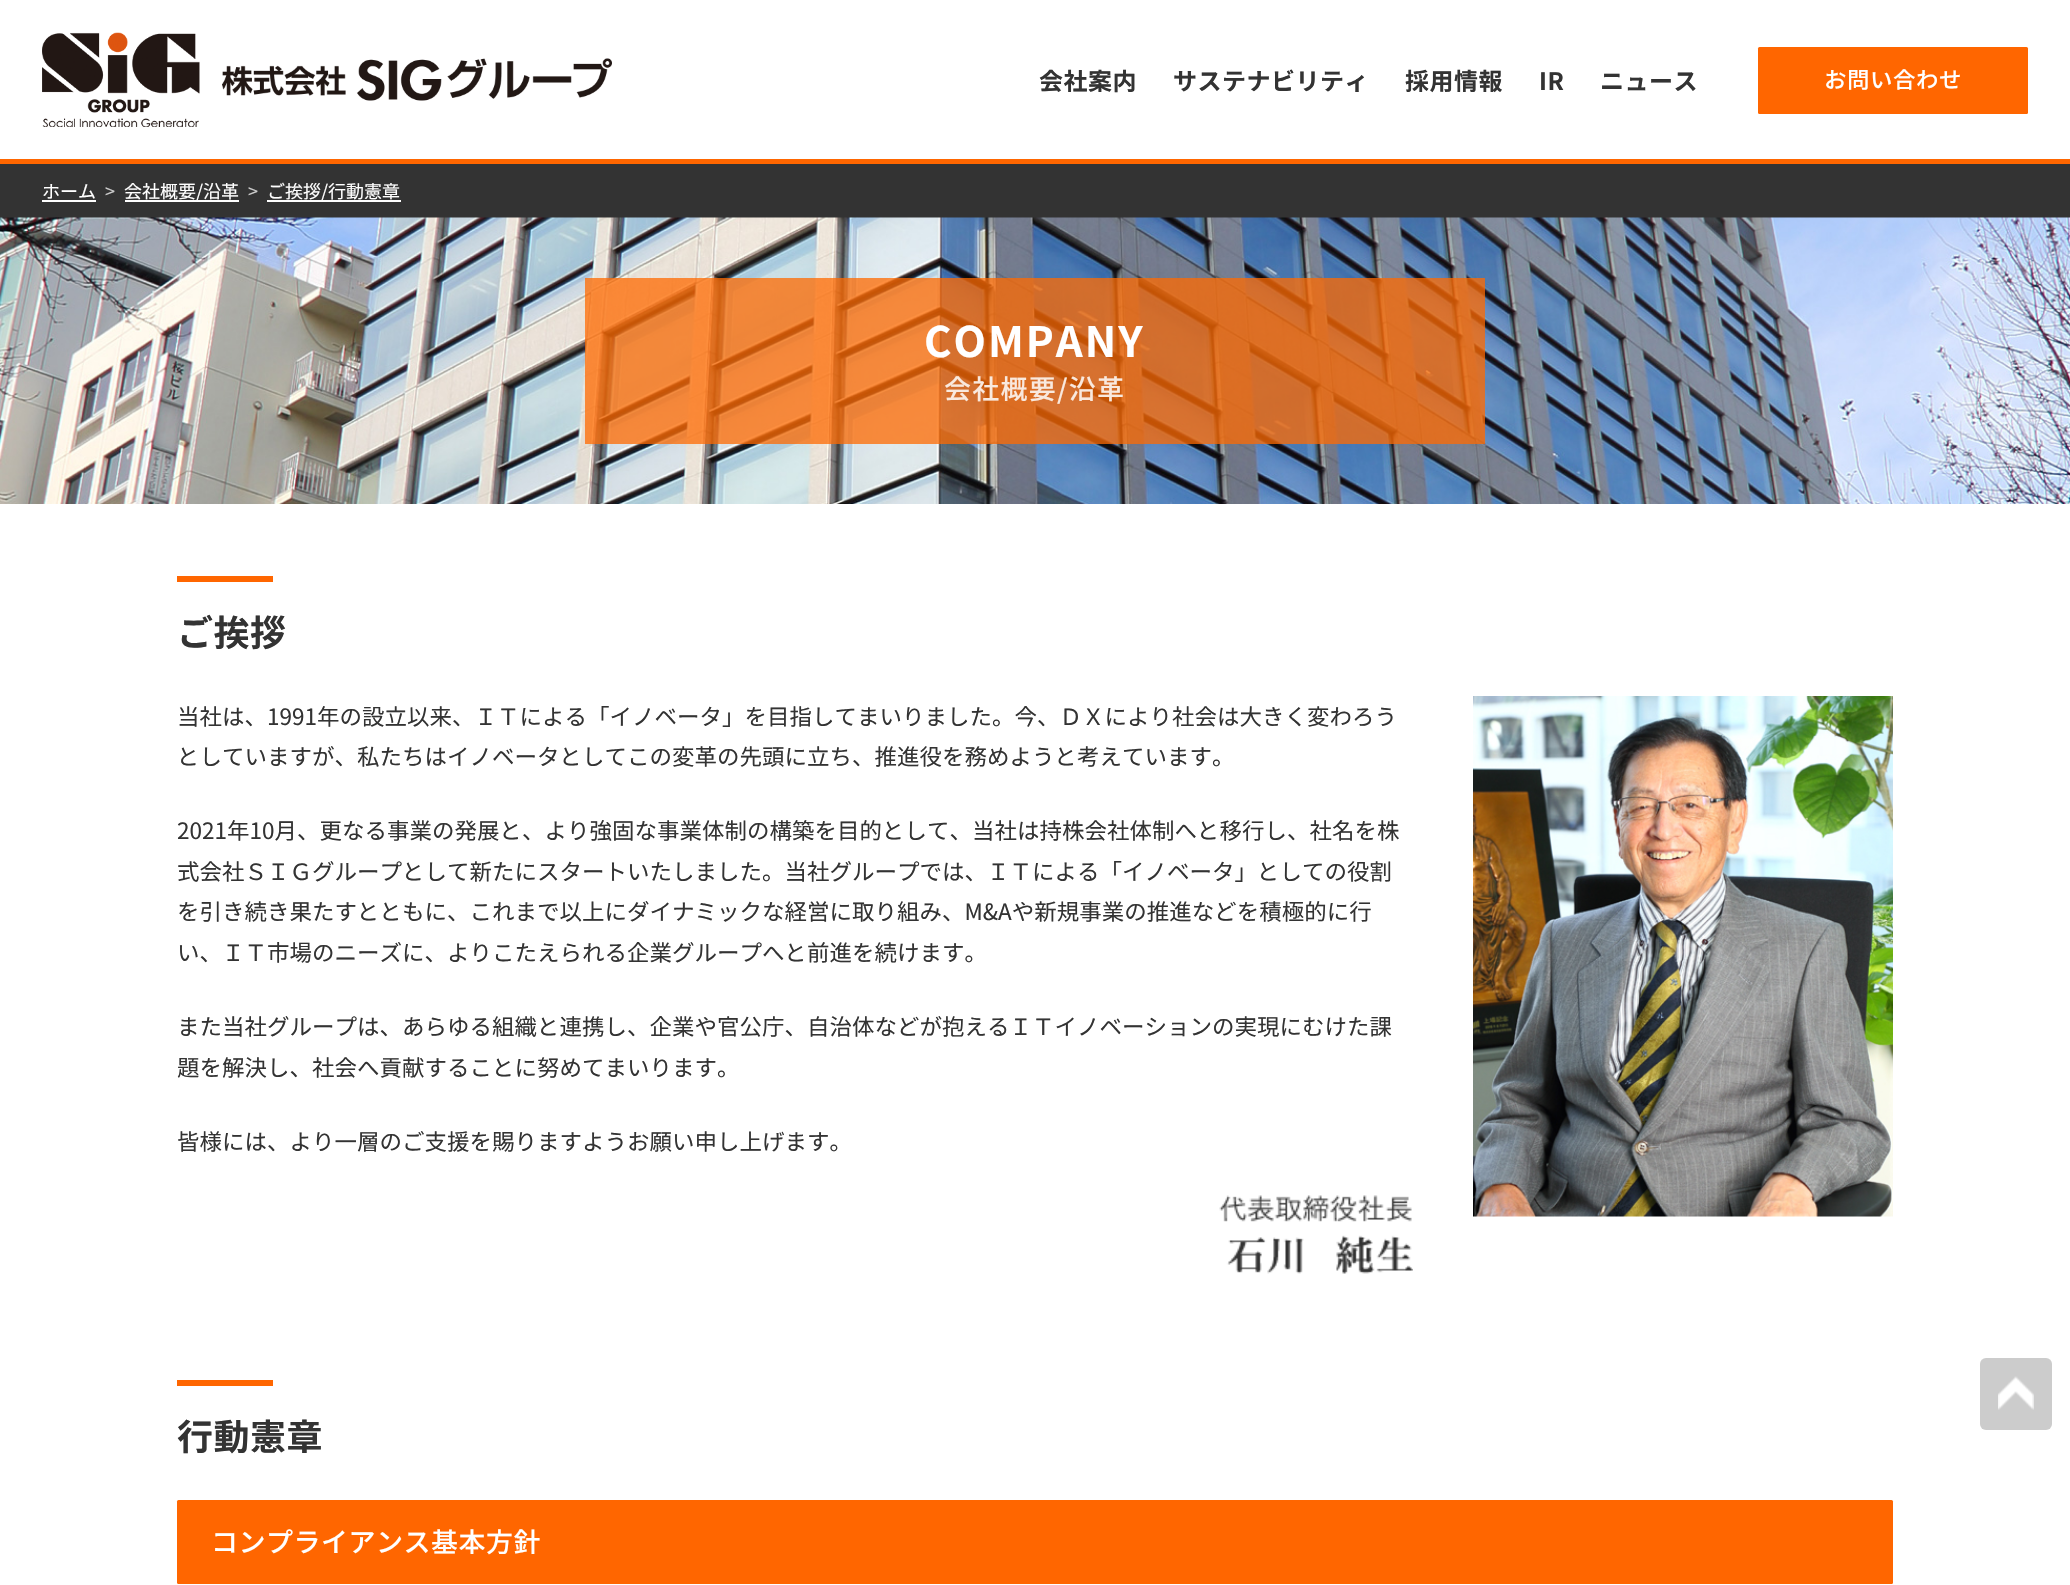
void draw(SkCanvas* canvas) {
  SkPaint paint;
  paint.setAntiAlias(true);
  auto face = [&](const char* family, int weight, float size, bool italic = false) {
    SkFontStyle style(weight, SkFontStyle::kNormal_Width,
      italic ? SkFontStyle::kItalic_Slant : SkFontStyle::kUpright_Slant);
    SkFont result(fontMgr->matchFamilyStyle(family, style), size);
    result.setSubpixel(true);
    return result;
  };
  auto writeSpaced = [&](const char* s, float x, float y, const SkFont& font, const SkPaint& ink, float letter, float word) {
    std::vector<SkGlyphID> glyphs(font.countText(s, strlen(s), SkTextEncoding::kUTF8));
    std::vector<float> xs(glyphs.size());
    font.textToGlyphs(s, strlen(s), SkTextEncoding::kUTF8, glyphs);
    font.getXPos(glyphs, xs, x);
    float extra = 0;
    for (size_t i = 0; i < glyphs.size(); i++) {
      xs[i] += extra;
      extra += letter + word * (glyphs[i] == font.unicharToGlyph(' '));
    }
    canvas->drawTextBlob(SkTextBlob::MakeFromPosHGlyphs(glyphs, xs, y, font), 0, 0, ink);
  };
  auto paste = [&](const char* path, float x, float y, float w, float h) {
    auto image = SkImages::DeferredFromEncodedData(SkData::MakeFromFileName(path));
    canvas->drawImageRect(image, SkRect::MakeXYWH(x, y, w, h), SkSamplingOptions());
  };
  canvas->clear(0xffffffff);
  paint.setColor(0xffff6600);
  canvas->drawRect(SkRect::MakeXYWH(0, 159, 2070, 5), paint);
  paste("img/1.png", 42, 32, 158, 95);
  paste("img/2.png", 222, 58, 390, 43);
  canvas->drawRoundRect(SkRect::MakeXYWH(1758, 47, 270, 67), 1.5f, 1.5f, paint);
  {
    const struct { float x, y, w, h; SkColor color; } items[] = {
      {0, 164, 2070, 54, 0xff333333},
      {42, 200, 54, 2, 0xffffffff},
      {125, 200, 114, 2, 0xffffffff},
      {267, 200, 134, 2, 0xffffffff},
    };
    for (auto [x, y, w, h, color] : items) {
      paint.setColor(color);
      canvas->drawRect(SkRect::MakeXYWH(x, y, w, h), paint);
    }
  }
  paste("img/3.png", 0, 217, 2070, 287);
  paint.setColor(0xbfff6a00);
  canvas->drawRect(SkRect::MakeXYWH(585, 278, 900, 166), paint);
  paint.setColor(0xffff6600);
  canvas->drawRect(SkRect::MakeXYWH(177, 576, 96, 6), paint);
  paste("img/4.png", 1219, 1195, 194, 79);
  paste("img/5.png", 1473, 696, 420, 521);
  canvas->drawRect(SkRect::MakeXYWH(177, 1380, 96, 6), paint);
  canvas->drawRoundRect(SkRect::MakeXYWH(177, 1500, 1716, 84), 1.5f, 1.5f, paint);
  paint.setColor(0xffcccccc);
  canvas->drawRoundRect(SkRect::MakeXYWH(1980, 1358, 72, 72), 6, 6, paint);
  paste("img/6.png", 1998, 1376, 36, 34);
  auto f0 = face("Noto Sans JP", 700, 24);
  paint.setColor(0xff333333);
  {
    const struct { const char* s; float x, y; } items[] = {
      {"会社案内", 1039, 90},
      {"サステナビリティ", 1173, 90},
      {"採用情報", 1405, 90},
      {"IR", 1539, 90},
      {"ニュース", 1600, 90},
    };
    for (auto [s, x, y] : items) {
      writeSpaced(s, x, y, f0, paint, 0.5f, 0);
    }
  }
  auto f1 = face("Noto Sans JP", 500, 22.5f);
  paint.setColor(0xffffffff);
  writeSpaced("お問い合わせ", 1824, 88, f1, paint, 0.5f, 0);
  auto f2 = face("Noto Sans JP", 400, 18);
  canvas->drawString("ホーム", 42, 198, f2, paint);
  paint.setColor(0xffcccccc);
  canvas->drawString(">", 105, 198, f2, paint);
  paint.setColor(0xffffffff);
  canvas->drawString("会社概要/沿革", 124, 198, f2, paint);
  paint.setColor(0xffcccccc);
  canvas->drawString(">", 248, 198, f2, paint);
  paint.setColor(0xffffffff);
  canvas->drawString("ご挨拶/行動憲章", 267, 198, f2, paint);
  auto f3 = face("Noto Sans JP", 700, 42);
  writeSpaced("COMPANY", 924, 357, f3, paint, 2, 0);
  auto f4 = face("Noto Sans JP", 500, 27);
  paint.setColor(0xfff9e9de);
  writeSpaced("会社概要/沿革", 944, 399, f4, paint, 1.25f, 0);
  auto f5 = face("Noto Sans JP", 700, 36);
  paint.setColor(0xff333333);
  writeSpaced("ご挨拶", 177, 646, f5, paint, 0.5f, 0);
  auto f6 = face("Noto Sans JP", 400, 22.5f);
  {
    const struct { const char* s; float x, y; } items[] = {
      {"当社は、1991年の設立以来、ＩＴによる「イノベータ」を目指してまいりました。今、ＤＸにより社会は大きく変わろう", 177, 725},
      {"としていますが、私たちはイノベータとしてこの変革の先頭に立ち、推進役を務めようと考えています。", 177, 765},
      {"2021年10月、更なる事業の発展と、より強固な事業体制の構築を目的として、当社は持株会社体制へと移行し、社名を株", 177, 839},
      {"式会社ＳＩＧグループとして新たにスタートいたしました。当社グループでは、ＩＴによる「イノベータ」としての役割", 177, 880},
      {"を引き続き果たすとともに、これまで以上にダイナミックな経営に取り組み、M&Aや新規事業の推進などを積極的に行", 177, 920},
      {"い、ＩＴ市場のニーズに、よりこたえられる企業グループへと前進を続けます。", 177, 961},
      {"また当社グループは、あらゆる組織と連携し、企業や官公庁、自治体などが抱えるＩＴイノベーションの実現にむけた課", 177, 1035},
      {"題を解決し、社会へ貢献することに努めてまいります。", 177, 1076},
      {"皆様には、より一層のご支援を賜りますようお願い申し上げます。", 177, 1150},
    };
    for (auto [s, x, y] : items) {
      canvas->drawString(s, x, y, f6, paint);
    }
  }
  writeSpaced("行動憲章", 177, 1450, f5, paint, 0.5f, 0);
  paint.setColor(0xffffffff);
  writeSpaced("コンプライアンス基本方針", 211, 1552, f4, paint, 0.5f, 0);
}
